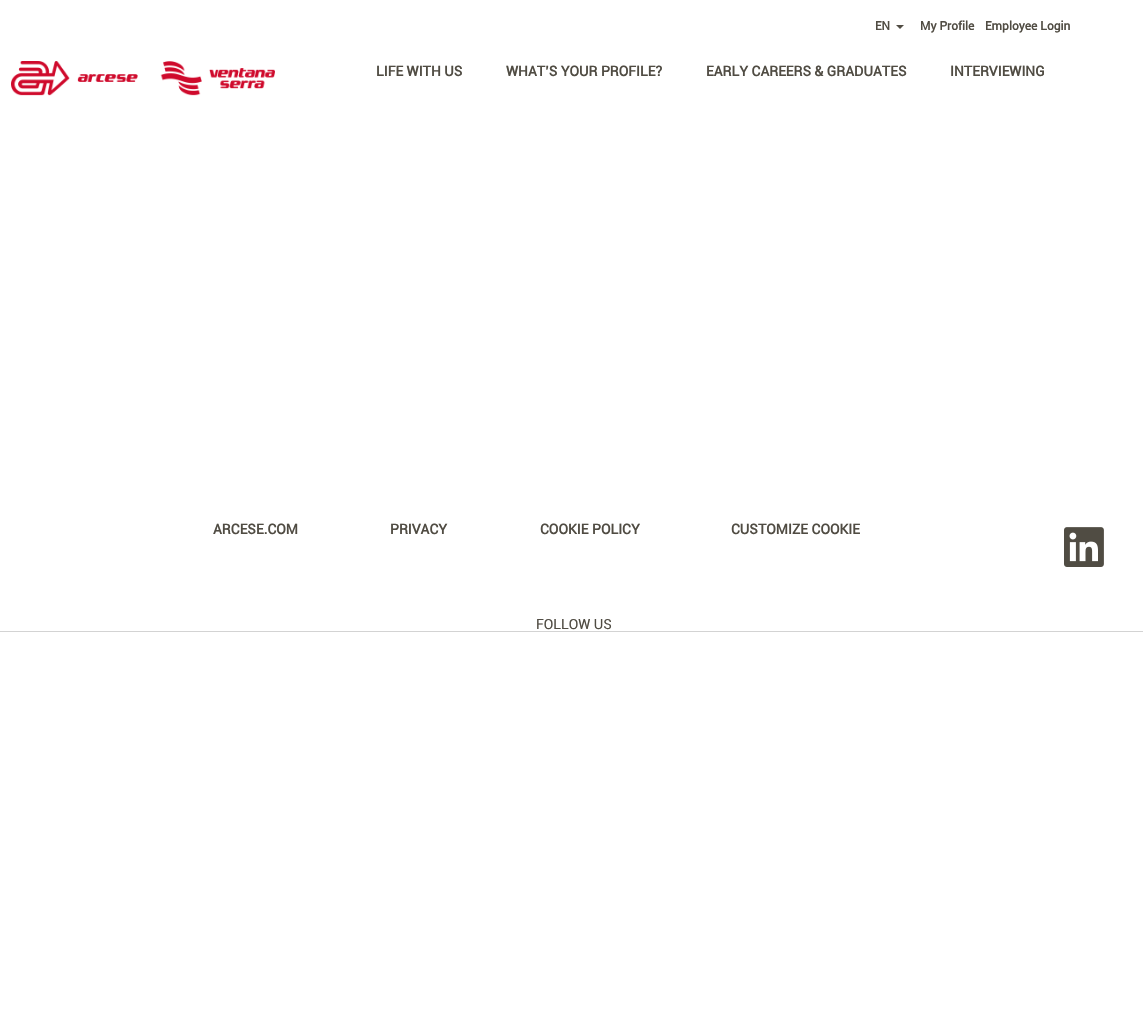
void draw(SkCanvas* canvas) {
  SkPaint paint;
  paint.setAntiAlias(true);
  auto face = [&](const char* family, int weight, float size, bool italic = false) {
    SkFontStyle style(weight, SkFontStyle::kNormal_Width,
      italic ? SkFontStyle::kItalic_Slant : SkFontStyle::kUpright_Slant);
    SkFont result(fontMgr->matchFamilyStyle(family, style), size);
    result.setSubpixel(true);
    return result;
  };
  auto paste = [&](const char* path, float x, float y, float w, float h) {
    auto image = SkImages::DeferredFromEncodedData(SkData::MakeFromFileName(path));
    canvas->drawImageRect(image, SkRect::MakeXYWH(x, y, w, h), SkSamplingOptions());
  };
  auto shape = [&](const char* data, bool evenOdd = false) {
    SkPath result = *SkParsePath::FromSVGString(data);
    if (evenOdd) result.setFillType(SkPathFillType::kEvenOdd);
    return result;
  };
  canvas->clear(0xffffffff);
  paint.setColor(0xff504c43);
  canvas->drawPath(shape("M896 25H904L900 29Z"), paint);
  paste("img/1.png", 11, 61, 264, 35);
  paste("img/2.png", 1064, 527, 40, 40);
  paint.setColor(0xffd3d3d3);
  canvas->drawRect(SkRect::MakeXYWH(0, 631, 1143, 1), paint);
  auto f0 = face("Roboto", 700, 12);
  paint.setColor(0xff504c43);
  {
    const struct { const char* s; float x, y; } items[] = {
      {"EN", 875, 30},
      {"My Profile", 920, 30},
      {"Employee Login", 985, 30},
    };
    for (auto [s, x, y] : items) {
      canvas->drawString(s, x, y, f0, paint);
    }
  }
  auto f1 = face("Roboto", 700, 14);
  {
    const struct { const char* s; float x, y; } items[] = {
      {"LIFE WITH US", 376, 76},
      {"WHAT’S YOUR PROFILE?", 506, 76},
      {"EARLY CAREERS & GRADUATES", 706, 76},
      {"INTERVIEWING", 950, 76},
      {"ARCESE.COM", 213, 534},
      {"PRIVACY", 390, 534},
      {"COOKIE POLICY", 540, 534},
      {"CUSTOMIZE COOKIE", 731, 534},
    };
    for (auto [s, x, y] : items) {
      canvas->drawString(s, x, y, f1, paint);
    }
  }
  auto f2 = face("Roboto", 400, 14);
  canvas->drawString("FOLLOW US", 536, 629, f2, paint);
}
